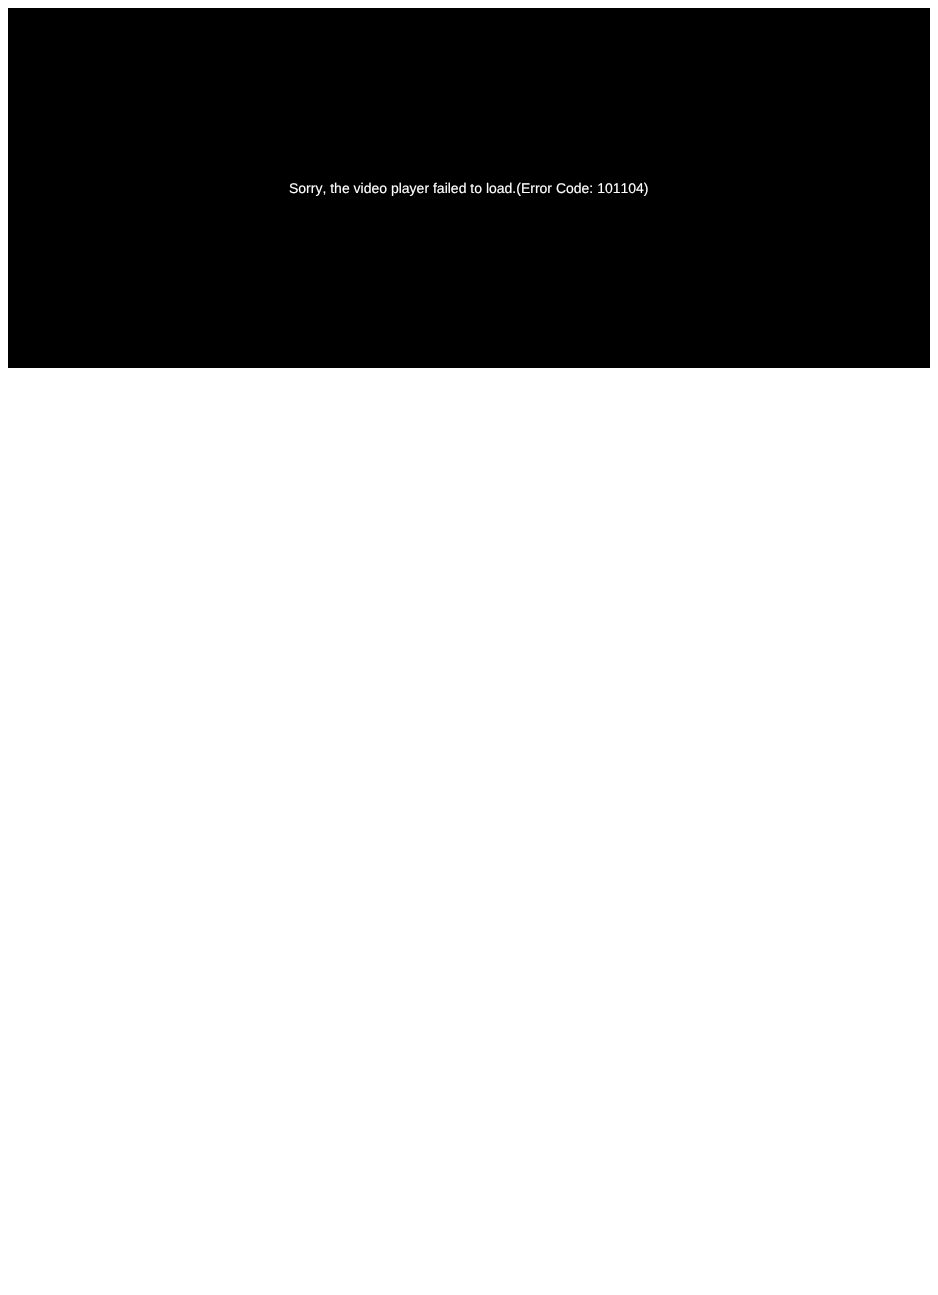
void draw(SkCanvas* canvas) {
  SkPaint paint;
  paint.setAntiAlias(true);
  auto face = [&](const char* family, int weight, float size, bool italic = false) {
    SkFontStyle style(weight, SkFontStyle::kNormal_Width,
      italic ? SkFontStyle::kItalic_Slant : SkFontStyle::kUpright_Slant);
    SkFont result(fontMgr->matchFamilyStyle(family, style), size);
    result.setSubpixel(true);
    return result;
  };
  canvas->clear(0xffffffff);
  paint.setColor(0xff000000);
  canvas->drawRect(SkRect::MakeXYWH(8, 8, 922, 360), paint);
  auto f0 = face("Liberation Sans", 400, 14);
  paint.setColor(0xffffffff);
  canvas->drawString("Sorry, the video player failed to load.(Error Code: 101104)", 289, 193, f0, paint);
}
